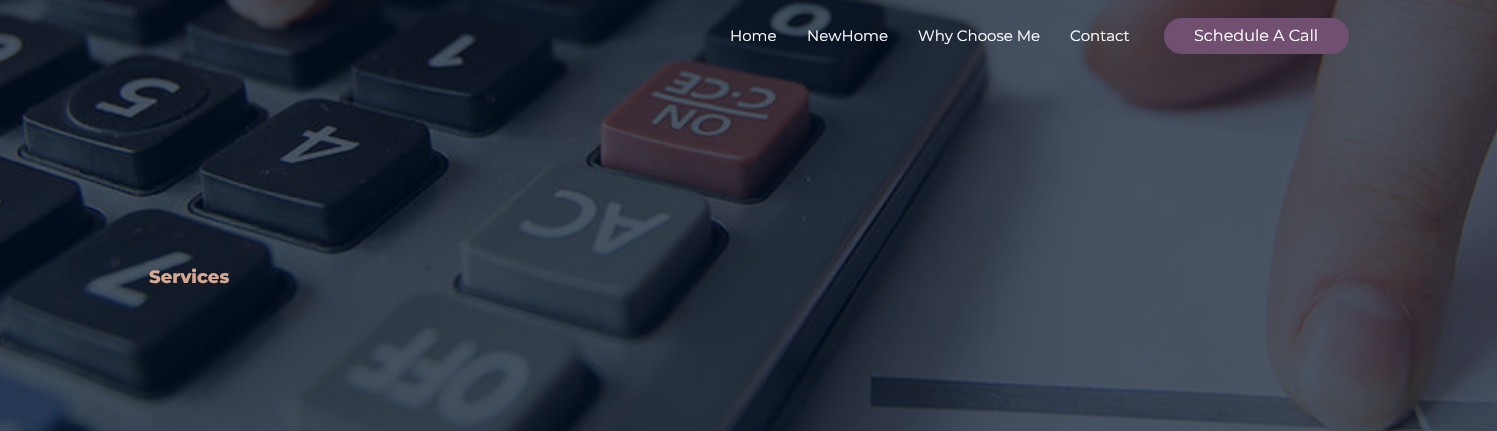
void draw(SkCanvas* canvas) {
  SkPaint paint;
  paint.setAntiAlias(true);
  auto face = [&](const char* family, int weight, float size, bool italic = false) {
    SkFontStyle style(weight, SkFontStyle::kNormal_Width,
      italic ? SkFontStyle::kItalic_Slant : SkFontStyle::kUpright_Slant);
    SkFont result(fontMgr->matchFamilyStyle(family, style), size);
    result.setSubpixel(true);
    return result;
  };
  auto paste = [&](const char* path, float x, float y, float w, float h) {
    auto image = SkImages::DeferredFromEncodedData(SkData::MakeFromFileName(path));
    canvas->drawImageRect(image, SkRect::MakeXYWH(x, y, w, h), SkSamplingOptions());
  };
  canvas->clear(0xffffffff);
  paste("img/1.png", 0, 0, 1497, 431);
  paint.setColor(0xff704f70);
  canvas->drawRoundRect(SkRect::MakeXYWH(1164, 18, 185, 36), 18, 18, paint);
  auto f0 = face("Montserrat", 400, 15);
  paint.setColor(0xffffffff);
  {
    const struct { const char* s; float x, y; } items[] = {
      {"Home", 730, 41},
      {"NewHome", 807, 41},
      {"Why Choose Me", 918, 41},
      {"Contact", 1070, 41},
    };
    for (auto [s, x, y] : items) {
      canvas->drawString(s, x, y, f0, paint);
    }
  }
  auto f1 = face("Montserrat", 400, 16);
  canvas->drawString("Schedule A Call", 1194, 41, f1, paint);
  auto f2 = face("Montserrat", 800, 18);
  paint.setColor(0xffd7a993);
  canvas->drawString("Services", 149, 283, f2, paint);
}
